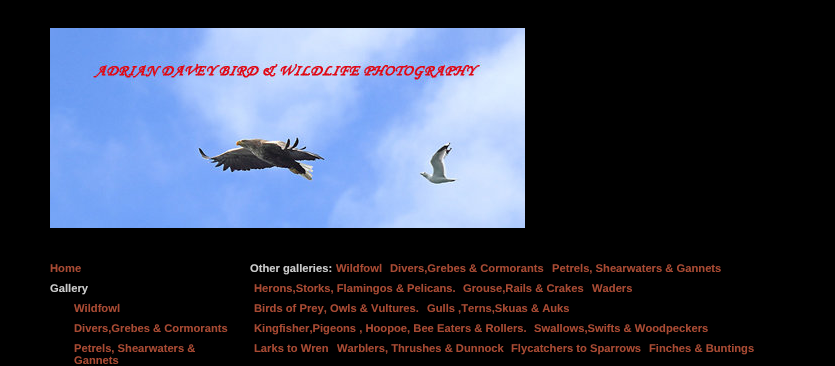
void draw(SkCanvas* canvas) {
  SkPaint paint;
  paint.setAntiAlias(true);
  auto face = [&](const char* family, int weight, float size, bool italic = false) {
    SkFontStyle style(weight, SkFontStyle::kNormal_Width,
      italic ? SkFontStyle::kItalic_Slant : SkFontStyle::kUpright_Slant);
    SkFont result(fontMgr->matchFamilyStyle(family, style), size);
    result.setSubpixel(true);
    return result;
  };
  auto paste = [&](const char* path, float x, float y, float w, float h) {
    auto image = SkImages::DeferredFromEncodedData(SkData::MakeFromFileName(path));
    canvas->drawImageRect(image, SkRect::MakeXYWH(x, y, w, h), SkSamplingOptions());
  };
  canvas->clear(0xff000000);
  paste("img/1.png", 50, 28, 475, 200);
  auto f0 = face("Liberation Sans", 700, 11.2f);
  paint.setColor(0xffa84a33);
  canvas->drawString("Home", 50, 272, f0, paint);
  paint.setColor(0xffcccccc);
  canvas->drawString("Gallery", 50, 292, f0, paint);
  canvas->drawString("Other galleries:", 250, 272, f0, paint);
  paint.setColor(0xffa84a33);
  {
    const struct { const char* s; float x, y; } items[] = {
      {"Wildfowl", 336, 272},
      {"Divers,Grebes & Cormorants", 390, 272},
      {"Petrels, Shearwaters & Gannets", 552, 272},
      {"Herons,Storks, Flamingos & Pelicans.", 254, 292},
      {"Grouse,Rails & Crakes", 463, 292},
      {"Waders", 592, 292},
      {"Birds of Prey, Owls & Vultures.", 254, 312},
      {"Gulls ,Terns,Skuas & Auks", 427, 312},
      {"Kingfisher,Pigeons , Hoopoe, Bee Eaters & Rollers.", 254, 332},
      {"Swallows,Swifts & Woodpeckers", 534, 332},
      {"Larks to Wren", 254, 352},
      {"Warblers, Thrushes & Dunnock", 337, 352},
      {"Flycatchers to Sparrows", 511, 352},
      {"Finches & Buntings", 649, 352},
      {"Wildfowl", 74, 312},
      {"Divers,Grebes & Cormorants", 74, 332},
      {"Petrels, Shearwaters &", 74, 352},
      {"Gannets", 74, 364},
    };
    for (auto [s, x, y] : items) {
      canvas->drawString(s, x, y, f0, paint);
    }
  }
}
